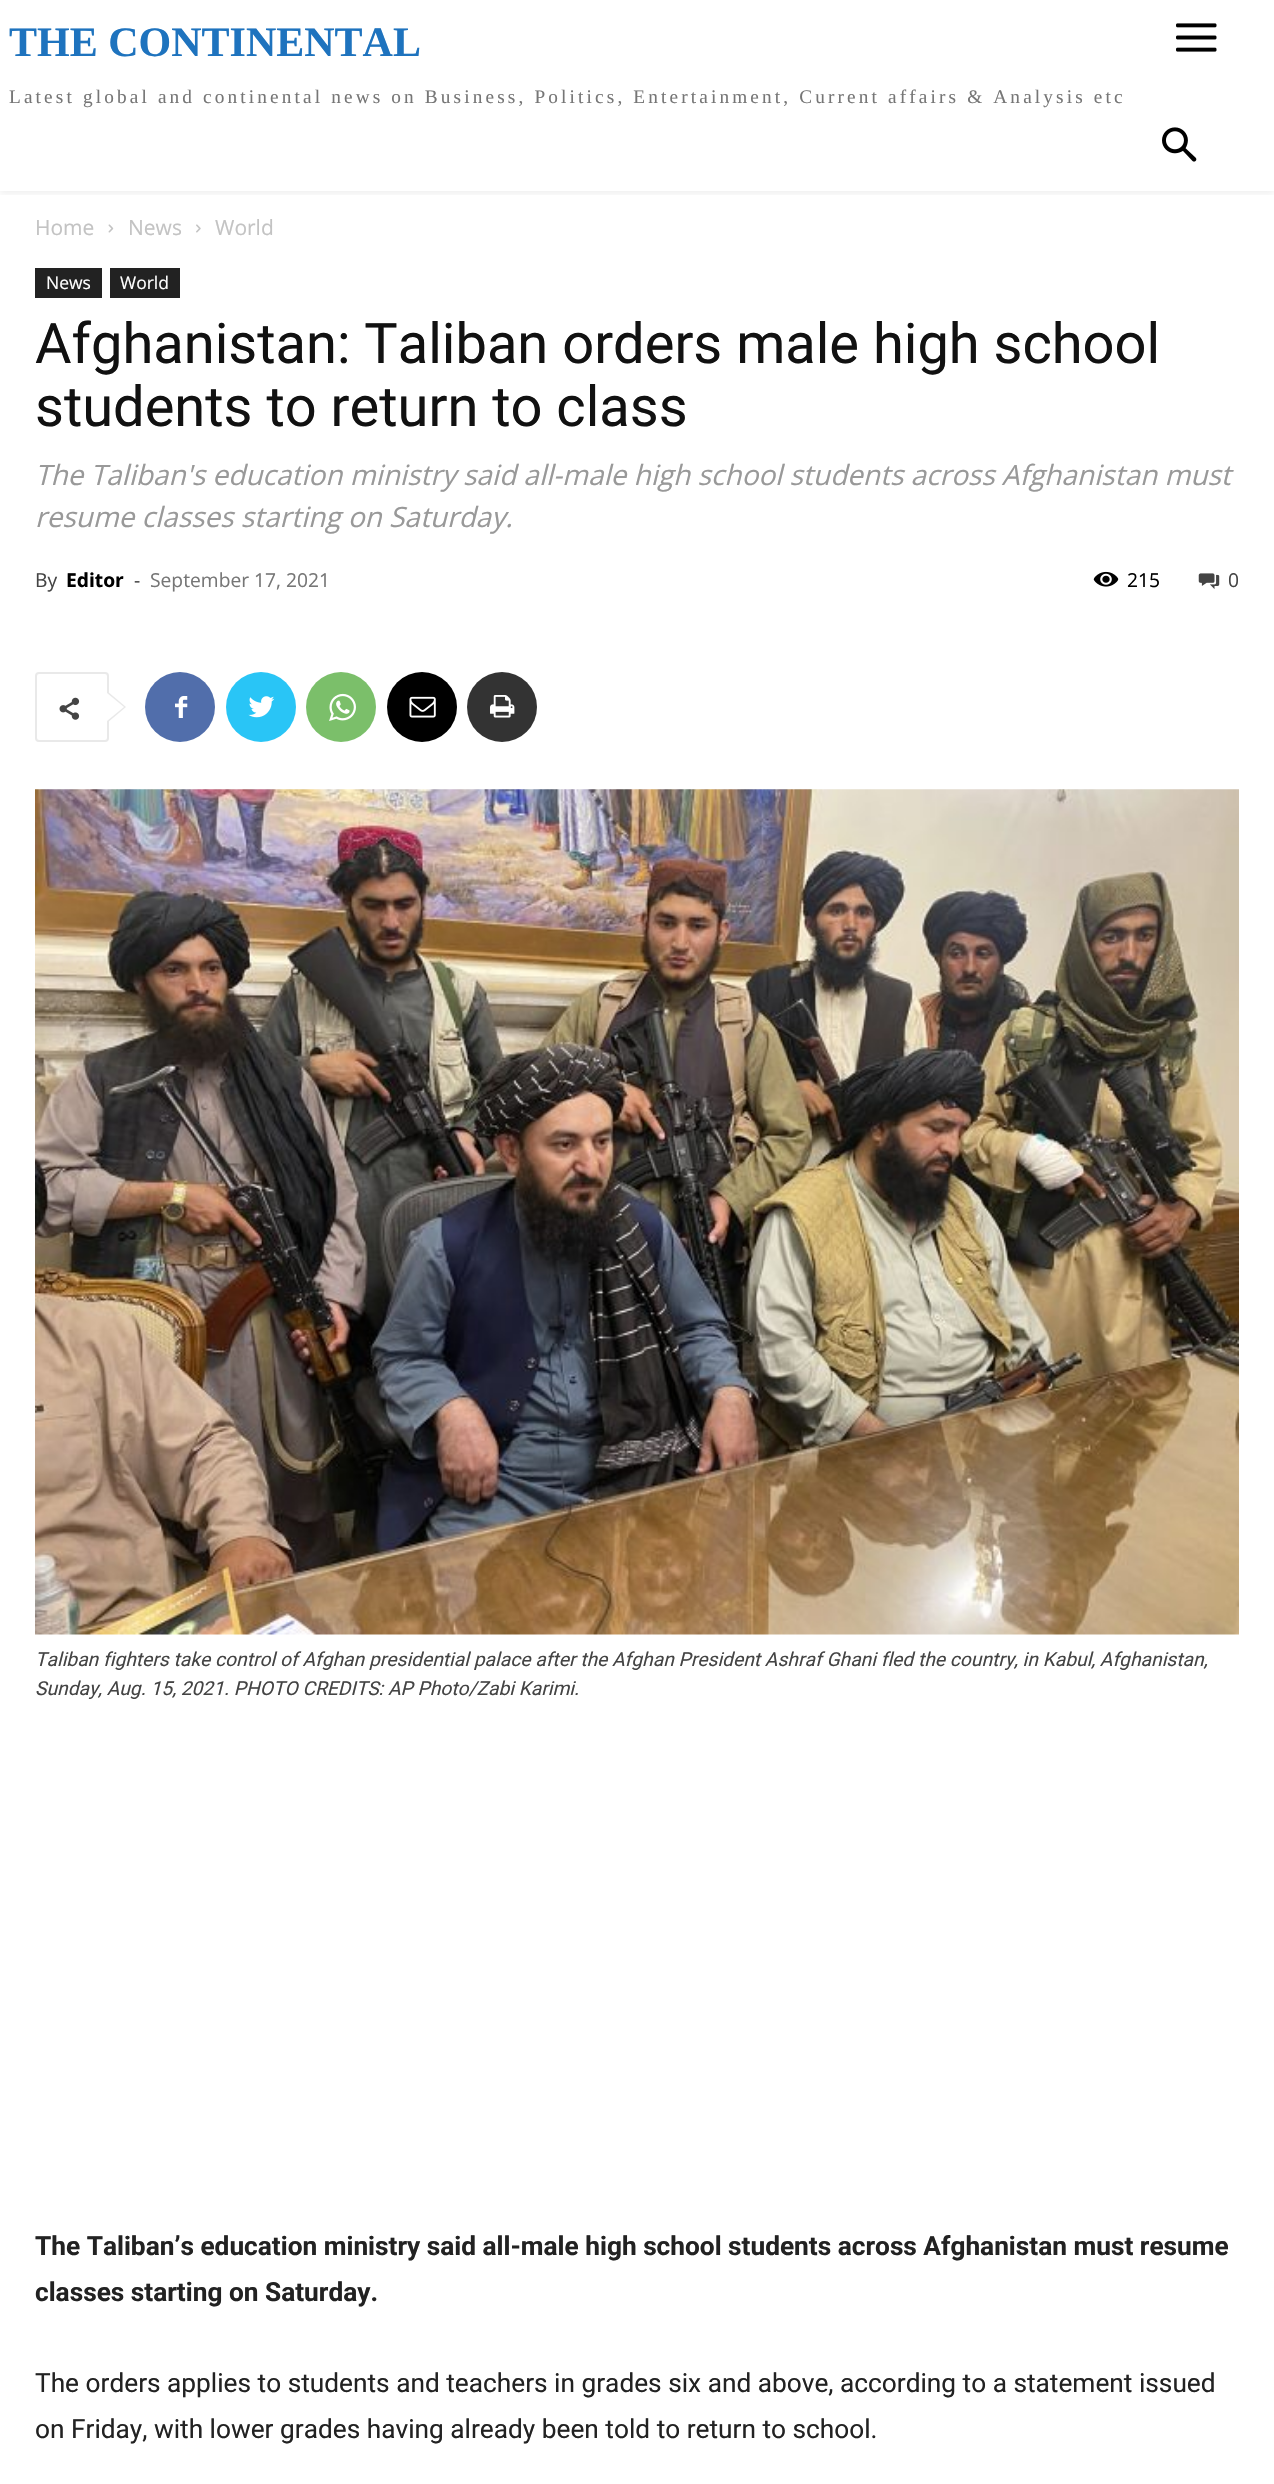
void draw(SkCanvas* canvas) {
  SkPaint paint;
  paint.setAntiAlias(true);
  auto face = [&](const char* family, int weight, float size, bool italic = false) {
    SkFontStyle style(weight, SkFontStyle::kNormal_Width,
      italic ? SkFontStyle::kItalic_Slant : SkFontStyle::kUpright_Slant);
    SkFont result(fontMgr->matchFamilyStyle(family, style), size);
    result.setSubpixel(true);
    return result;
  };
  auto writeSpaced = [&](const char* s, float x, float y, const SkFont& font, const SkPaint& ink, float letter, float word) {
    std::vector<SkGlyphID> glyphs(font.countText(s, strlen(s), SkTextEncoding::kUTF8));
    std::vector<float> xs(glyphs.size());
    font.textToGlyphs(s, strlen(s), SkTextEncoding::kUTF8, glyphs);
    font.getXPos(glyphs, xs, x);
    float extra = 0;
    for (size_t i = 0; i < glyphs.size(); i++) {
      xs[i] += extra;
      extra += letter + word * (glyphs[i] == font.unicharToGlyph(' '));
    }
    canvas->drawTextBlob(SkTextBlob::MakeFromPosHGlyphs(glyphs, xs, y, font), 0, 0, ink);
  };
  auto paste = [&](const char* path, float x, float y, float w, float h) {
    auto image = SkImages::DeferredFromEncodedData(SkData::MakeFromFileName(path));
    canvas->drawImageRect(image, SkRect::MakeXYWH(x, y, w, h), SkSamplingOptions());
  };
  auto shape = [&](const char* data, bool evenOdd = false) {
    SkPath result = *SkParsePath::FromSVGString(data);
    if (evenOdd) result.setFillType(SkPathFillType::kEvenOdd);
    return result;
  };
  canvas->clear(0xffffffff);
  paste("img/1.png", 1176, 23, 41, 29);
  paste("img/2.png", 1162, 127, 35, 35);
  canvas->save();
  canvas->clipRect(SkRect::MakeXYWH(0, 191, 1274, 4));
  paint.setColor(0x0f000000);
  paint.setMaskFilter(SkMaskFilter::MakeBlur(kNormal_SkBlurStyle, 3.5f));
  canvas->drawRect(SkRect::MakeXYWH(0, 4, 1274, 190), paint);
  paint.setMaskFilter(nullptr);
  canvas->restore();
  paste("img/3.png", 108, 224, 6, 9);
  paste("img/4.png", 196, 224, 5, 9);
  paint.setColor(0xff222222);
  canvas->drawRect(SkRect::MakeXYWH(35, 268, 67, 30), paint);
  canvas->drawRect(SkRect::MakeXYWH(110, 268, 70, 30), paint);
  paste("img/5.png", 1093, 571, 26, 16);
  paste("img/6.png", 1198, 573, 22, 16);
  paint.setStroke(true);
  paint.setStrokeWidth(2);
  paint.setColor(0xffe9e9e9);
  canvas->drawRoundRect(SkRect::MakeXYWH(36, 673, 72, 68), 3, 3, paint);
  paint.setStroke(false);
  canvas->drawPath(shape("M107 723V691L126 707Z"), paint);
  paste("img/7.png", 59, 697, 21, 23);
  paint.setColor(0xffffffff);
  canvas->drawPath(shape("M107 721V693L124 707Z"), paint);
  paint.setColor(0xff516eab);
  canvas->drawCircle(180, 707, 35, paint);
  paste("img/8.png", 175, 696, 13, 22);
  paint.setColor(0xff29c5f6);
  canvas->drawCircle(261, 707, 35, paint);
  paste("img/9.png", 248, 696, 27, 22);
  paint.setColor(0xff7bbf6a);
  canvas->drawCircle(341, 707, 35, paint);
  paste("img/10.png", 329, 693, 27, 28);
  paint.setColor(0xff000000);
  canvas->drawCircle(422, 707, 35, paint);
  paste("img/11.png", 409, 696, 27, 22);
  paint.setColor(0xff333333);
  canvas->drawCircle(502, 707, 35, paint);
  paste("img/12.png", 490, 695, 25, 23);
  paste("img/13.png", 35, 789, 1204, 846);
  auto f0 = face("Liberation Serif", 700, 42);
  paint.setColor(0xff1e73be);
  canvas->drawString("THE CONTINENTAL", 9, 56, f0, paint);
  auto f1 = face("Liberation Serif", 400, 19.25f);
  paint.setColor(0xff767676);
  writeSpaced("Latest global and continental news on Business, Politics, Entertainment, Current affairs & Analysis etc", 9, 103, f1, paint, 3.15f, 0);
  auto f2 = face("Open Sans", 400, 21);
  paint.setColor(0xffc3c3c3);
  {
    const struct { const char* s; float x, y; } items[] = {
      {"Home", 35, 235},
      {"News", 128, 235},
      {"World", 215, 235},
    };
    for (auto [s, x, y] : items) {
      canvas->drawString(s, x, y, f2, paint);
    }
  }
  auto f3 = face("Open Sans", 400, 17.5f);
  paint.setColor(0xffffffff);
  canvas->drawString("News", 46, 289, f3, paint);
  canvas->drawString("World", 120, 289, f3, paint);
  auto f4 = face("Roboto", 400, 56);
  paint.setColor(0xff111111);
  canvas->drawString("Afghanistan: Taliban orders male high school", 35, 363, f4, paint);
  canvas->drawString("students to return to class", 35, 426, f4, paint);
  auto f5 = face("Open Sans", 400, 28, true);
  paint.setColor(0xff999999);
  canvas->drawString("The Taliban's education ministry said all-male high school students across Afghanistan must", 35, 485, f5, paint);
  canvas->drawString("resume classes starting on Saturday.", 35, 527, f5, paint);
  auto f6 = face("Open Sans", 400, 19.25f);
  paint.setColor(0xff444444);
  canvas->drawString("By", 35, 587, f6, paint);
  auto f7 = face("Open Sans", 700, 19.25f);
  paint.setColor(0xff000000);
  canvas->drawString("Editor", 66, 587, f7, paint);
  paint.setColor(0xff444444);
  canvas->drawString("-", 134, 587, f6, paint);
  paint.setColor(0xff767676);
  canvas->drawString("September 17, 2021", 150, 587, f6, paint);
  paint.setColor(0xff000000);
  canvas->drawString("215", 1127, 587, f6, paint);
  paint.setColor(0xff444444);
  canvas->drawString("0", 1228, 587, f6, paint);
  auto f8 = face("Roboto", 400, 19.25f, true);
  canvas->drawString("Taliban fighters take control of Afghan presidential palace after the Afghan President Ashraf Ghani fled the country, in Kabul, Afghanistan,", 35, 1666, f8, paint);
  canvas->drawString("Sunday, Aug. 15, 2021. PHOTO CREDITS: AP Photo/Zabi Karimi.", 35, 1695, f8, paint);
  auto f9 = face("Roboto", 700, 26.25f);
  paint.setColor(0xff222222);
  canvas->drawString("The Taliban’s education ministry said all-male high school students across Afghanistan must resume", 35, 2255, f9, paint);
  canvas->drawString("classes starting on Saturday.", 35, 2301, f9, paint);
  auto f10 = face("Roboto", 400, 26.25f);
  canvas->drawString("The orders applies to students and teachers in grades six and above, according to a statement issued", 35, 2392, f10, paint);
  canvas->drawString("on Friday, with lower grades having already been told to return to school.", 35, 2438, f10, paint);
}
